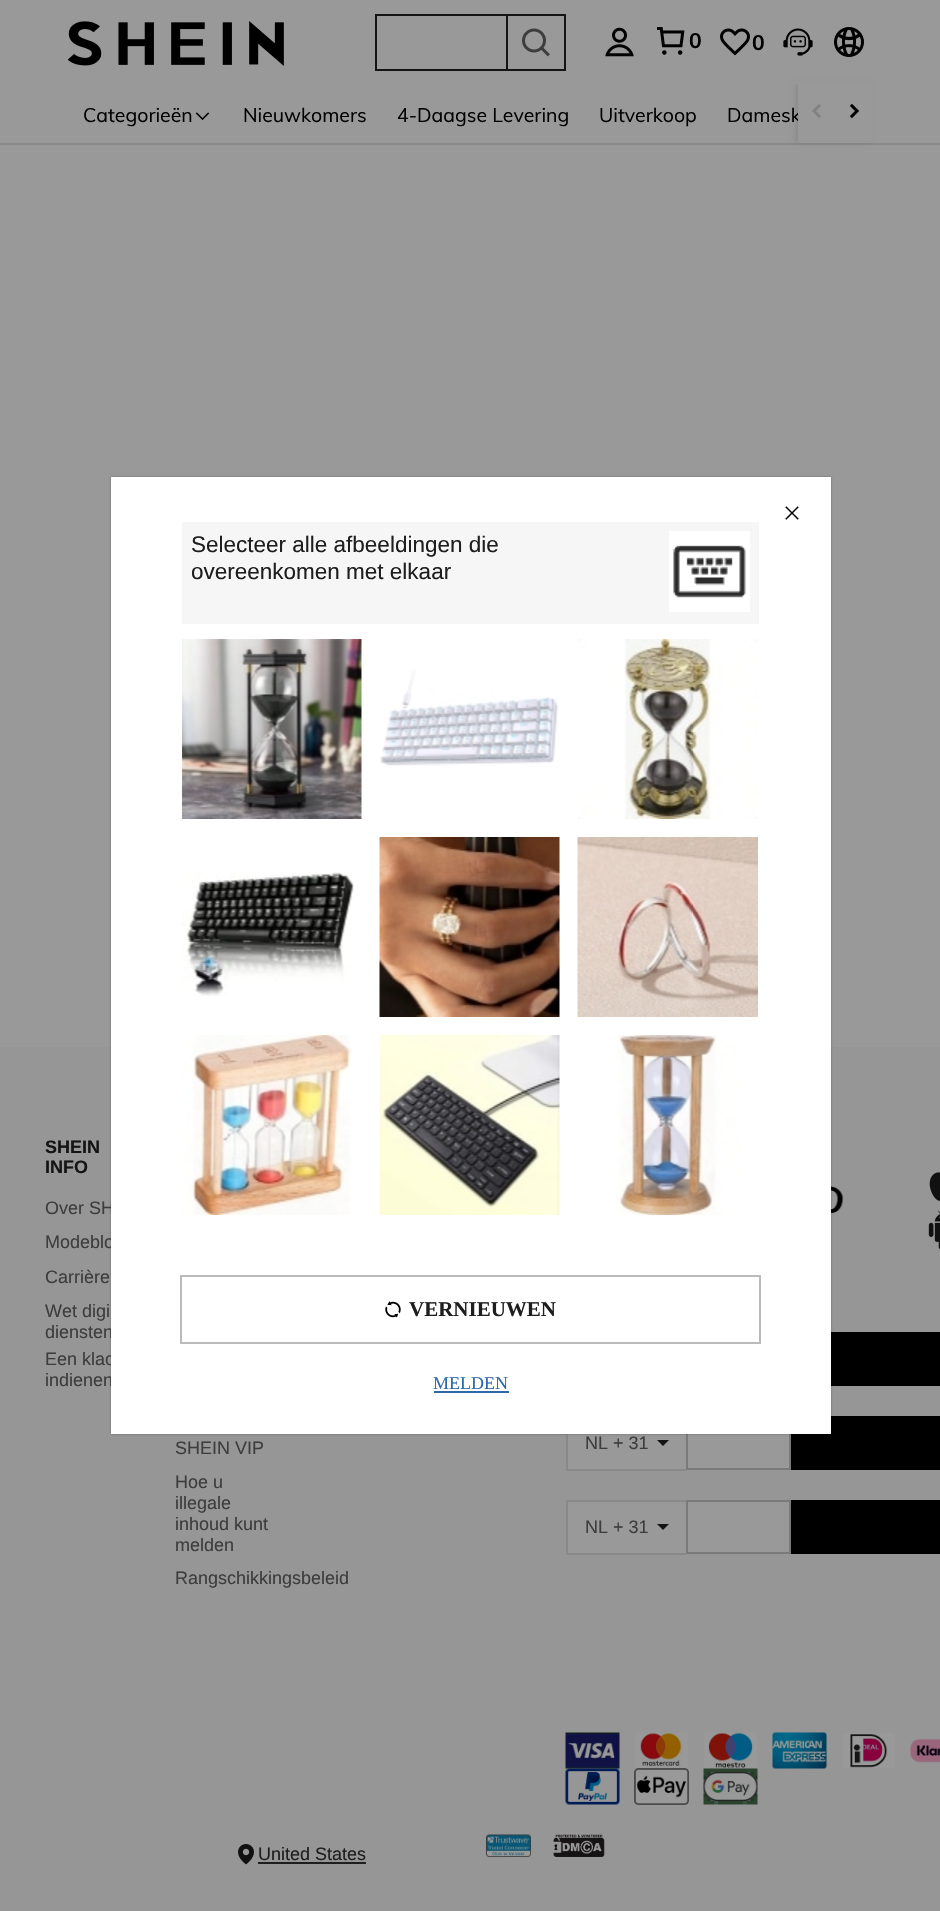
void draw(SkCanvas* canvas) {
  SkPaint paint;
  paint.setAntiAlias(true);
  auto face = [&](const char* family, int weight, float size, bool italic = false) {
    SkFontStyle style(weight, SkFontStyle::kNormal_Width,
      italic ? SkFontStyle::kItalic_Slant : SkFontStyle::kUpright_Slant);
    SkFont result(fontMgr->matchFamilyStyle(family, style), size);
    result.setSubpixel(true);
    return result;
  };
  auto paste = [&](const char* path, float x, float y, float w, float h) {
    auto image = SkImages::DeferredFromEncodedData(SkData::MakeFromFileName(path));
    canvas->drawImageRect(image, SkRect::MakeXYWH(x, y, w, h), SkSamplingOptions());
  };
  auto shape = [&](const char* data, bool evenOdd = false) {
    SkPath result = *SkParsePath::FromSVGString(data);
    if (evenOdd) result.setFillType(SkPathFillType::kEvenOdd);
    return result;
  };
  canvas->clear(0xff999999);
  paint.setColor(0xff898989);
  canvas->drawRect(SkRect::MakeXYWH(0, 143, 940, 2), paint);
  paint.setColor(0x14000000);
  paint.setMaskFilter(SkMaskFilter::MakeBlur(kNormal_SkBlurStyle, 2));
  canvas->drawRect(SkRect::MakeXYWH(795, 84, 75, 59), paint);
  paint.setMaskFilter(nullptr);
  paint.setColor(0xff999999);
  canvas->drawRect(SkRect::MakeXYWH(795, 82, 75, 2), paint);
  paste("img/1.png", 68, 21, 216, 45);
  {
    const struct { float x, y, w, h; SkColor color; } items[] = {
      {375, 14, 131, 2, 0xff141414},
      {375, 69, 131, 2, 0xff141414},
      {375, 14, 2, 57, 0xff141414},
    };
    for (auto [x, y, w, h, color] : items) {
      paint.setColor(color);
      canvas->drawRect(SkRect::MakeXYWH(x, y, w, h), paint);
    }
  }
  paint.setStroke(true);
  paint.setStrokeWidth(2);
  canvas->drawRect(SkRect::MakeXYWH(507, 15, 58, 55), paint);
  paste("img/2.png", 522, 28, 28, 29);
  paste("img/3.png", 605, 27, 29, 30);
  paste("img/4.png", 657, 27, 28, 28);
  paste("img/5.png", 720, 28, 30, 28);
  paste("img/6.png", 783, 28, 30, 28);
  paste("img/7.png", 834, 27, 30, 30);
  paste("img/8.png", 195, 112, 15, 8);
  paint.setStroke(false);
  paint.setColor(0xff969696);
  canvas->drawRect(SkRect::MakeXYWH(0, 1047, 940, 864), paint);
  paste("img/11.png", 831, 1186, 13, 27);
  paste("img/12.png", 929, 1172, 11, 29);
  paste("img/13.png", 928, 1210, 12, 40);
  {
    const struct { float x, y, w, h; SkColor color; } items[] = {
      {831, 1332, 109, 54, 0xff000000},
      {568, 1434, 118, 35, 0xff999999},
      {566, 1469, 120, 2, 0xff898989},
      {566, 1434, 2, 36, 0xff898989},
    };
    for (auto [x, y, w, h, color] : items) {
      paint.setColor(color);
      canvas->drawRect(SkRect::MakeXYWH(x, y, w, h), paint);
    }
  }
  paint.setColor(0xff141414);
  canvas->drawPath(shape("M657 1440H669L663 1446Z"), paint);
  paint.setColor(0xff999999);
  canvas->drawRect(SkRect::MakeXYWH(688, 1434, 101, 34), paint);
  paint.setStroke(true);
  paint.setColor(0xff7a7a7a);
  canvas->drawRect(SkRect::MakeXYWH(687, 1417, 103, 52), paint);
  paint.setStroke(false);
  {
    const struct { float x, y, w, h; SkColor color; } items[] = {
      {791, 1416, 149, 54, 0xff000000},
      {568, 1502, 118, 51, 0xff999999},
      {566, 1500, 120, 2, 0xff898989},
      {566, 1553, 120, 2, 0xff898989},
      {566, 1500, 2, 54, 0xff898989},
    };
    for (auto [x, y, w, h, color] : items) {
      paint.setColor(color);
      canvas->drawRect(SkRect::MakeXYWH(x, y, w, h), paint);
    }
  }
  paint.setColor(0xff141414);
  canvas->drawPath(shape("M657 1524H669L663 1530Z"), paint);
  paint.setColor(0xff999999);
  canvas->drawRect(SkRect::MakeXYWH(687, 1501, 103, 52), paint);
  paint.setStroke(true);
  paint.setColor(0xff7a7a7a);
  canvas->drawRect(SkRect::MakeXYWH(687, 1501, 103, 52), paint);
  paint.setStroke(false);
  paint.setColor(0xff000000);
  canvas->drawRect(SkRect::MakeXYWH(791, 1500, 149, 54), paint);
  paste("img/14.png", 565, 1732, 55, 37);
  paste("img/15.png", 635, 1732, 53, 36);
  paste("img/16.png", 704, 1732, 53, 36);
  paste("img/17.png", 772, 1732, 55, 37);
  paste("img/18.png", 842, 1733, 53, 35);
  paste("img/19.png", 910, 1738, 30, 25);
  paste("img/20.png", 565, 1768, 55, 37);
  paste("img/21.png", 634, 1768, 55, 37);
  paste("img/22.png", 703, 1768, 55, 37);
  paste("img/23.png", 238, 1844, 16, 21);
  paint.setColor(0xff1e1e1e);
  canvas->drawRect(SkRect::MakeXYWH(258, 1862, 108, 2), paint);
  paste("img/24.png", 486, 1834, 45, 23);
  paste("img/25.png", 553, 1834, 52, 23);
  paint.setColor(0x4d000000);
  paint.setMaskFilter(SkMaskFilter::MakeBlur(kNormal_SkBlurStyle, 1));
  canvas->drawRect(SkRect::MakeXYWH(111, 477, 720, 957), paint);
  paint.setMaskFilter(nullptr);
  auto f0 = face("Muli", 700, 21);
  paint.setColor(0xff000000);
  canvas->drawString("0", 689, 48, f0, paint);
  canvas->drawString("0", 752, 50, f0, paint);
  auto f1 = face("Muli", 400, 19.5f);
  {
    const struct { const char* s; float x, y; } items[] = {
      {"Categorieën", 83, 122},
      {"Nieuwkomers", 243, 122},
      {"4-Daagse Levering", 397, 122},
      {"Uitverkoop", 599, 122},
      {"Damesk", 727, 122},
    };
    for (auto [s, x, y] : items) {
      canvas->drawString(s, x, y, f1, paint);
    }
  }
  paint.setColor(0xff999999);
  canvas->drawRect(SkRect::MakeXYWH(798, 84, 74, 59), paint);
  paste("img/9.png", 812, 104, 9, 14);
  paste("img/10.png", 849, 103, 10, 16);
  auto f2 = face("Liberation Sans", 700, 18);
  paint.setColor(0xff141414);
  canvas->drawString("SHEIN", 45, 1153, f2, paint);
  canvas->drawString("INFO", 45, 1173, f2, paint);
  auto f3 = face("Liberation Sans", 400, 18);
  paint.setColor(0xff3d3d3d);
  {
    const struct { const char* s; float x, y; } items[] = {
      {"Over SH", 45, 1214},
      {"Modeblo", 45, 1248},
      {"Carrière", 45, 1283},
      {"Wet digi", 45, 1317},
      {"diensten", 45, 1338},
      {"Een klac", 45, 1365},
      {"indienen", 45, 1386},
      {"SHEIN VIP", 175, 1454},
      {"Hoe u", 175, 1488},
      {"illegale", 175, 1509},
      {"inhoud kunt", 175, 1530},
      {"melden", 175, 1551},
      {"Rangschikkingsbeleid", 175, 1584},
      {"NL + 31", 585, 1449},
      {"NL + 31", 585, 1533},
    };
    for (auto [s, x, y] : items) {
      canvas->drawString(s, x, y, f3, paint);
    }
  }
  paint.setColor(0xff1e1e1e);
  canvas->drawString("United States", 258, 1860, f3, paint);
  paint.setColor(0xffffffff);
  canvas->drawRect(SkRect::MakeXYWH(111, 477, 720, 957), paint);
  paste("img/26.png", 785, 506, 14, 14);
  paint.setColor(0xfff6f6f6);
  canvas->drawRect(SkRect::MakeXYWH(182, 522, 577, 102), paint);
  auto f4 = face("Liberation Sans", 400, 22.5f);
  paint.setColor(0xff1e1e1e);
  canvas->drawString("Selecteer alle afbeeldingen die", 191, 552, f4, paint);
  canvas->drawString("overeenkomen met elkaar", 191, 579, f4, paint);
  paint.setColor(0xffffffff);
  canvas->drawRect(SkRect::MakeXYWH(669, 531, 81, 81), paint);
  paste("img/27.png", 673, 545, 73, 53);
  paste("img/28.png", 182, 639, 180, 180);
  paste("img/29.png", 380, 669, 179, 97);
  paste("img/30.png", 578, 639, 180, 180);
  paste("img/31.png", 182, 872, 172, 124);
  paste("img/32.png", 379, 837, 181, 180);
  paste("img/33.png", 577, 837, 181, 180);
  paste("img/34.png", 182, 1035, 170, 180);
  paste("img/35.png", 379, 1035, 181, 180);
  paste("img/36.png", 615, 1035, 126, 180);
  paint.setStroke(true);
  paint.setColor(0xffbbbbbb);
  canvas->drawRect(SkRect::MakeXYWH(181, 1276, 579, 67), paint);
  paste("img/37.png", 385, 1301, 16, 17);
  auto f5 = face("Liberation Serif", 700, 21);
  paint.setStroke(false);
  paint.setColor(0xff1e1e1e);
  canvas->drawString("VERNIEUWEN", 409, 1316, f5, paint);
  auto f6 = face("Liberation Serif", 400, 18);
  paint.setColor(0xff2d68a8);
  canvas->drawString("MELDEN", 433, 1389, f6, paint);
  canvas->drawRect(SkRect::MakeXYWH(434, 1391, 75, 2), paint);
}
